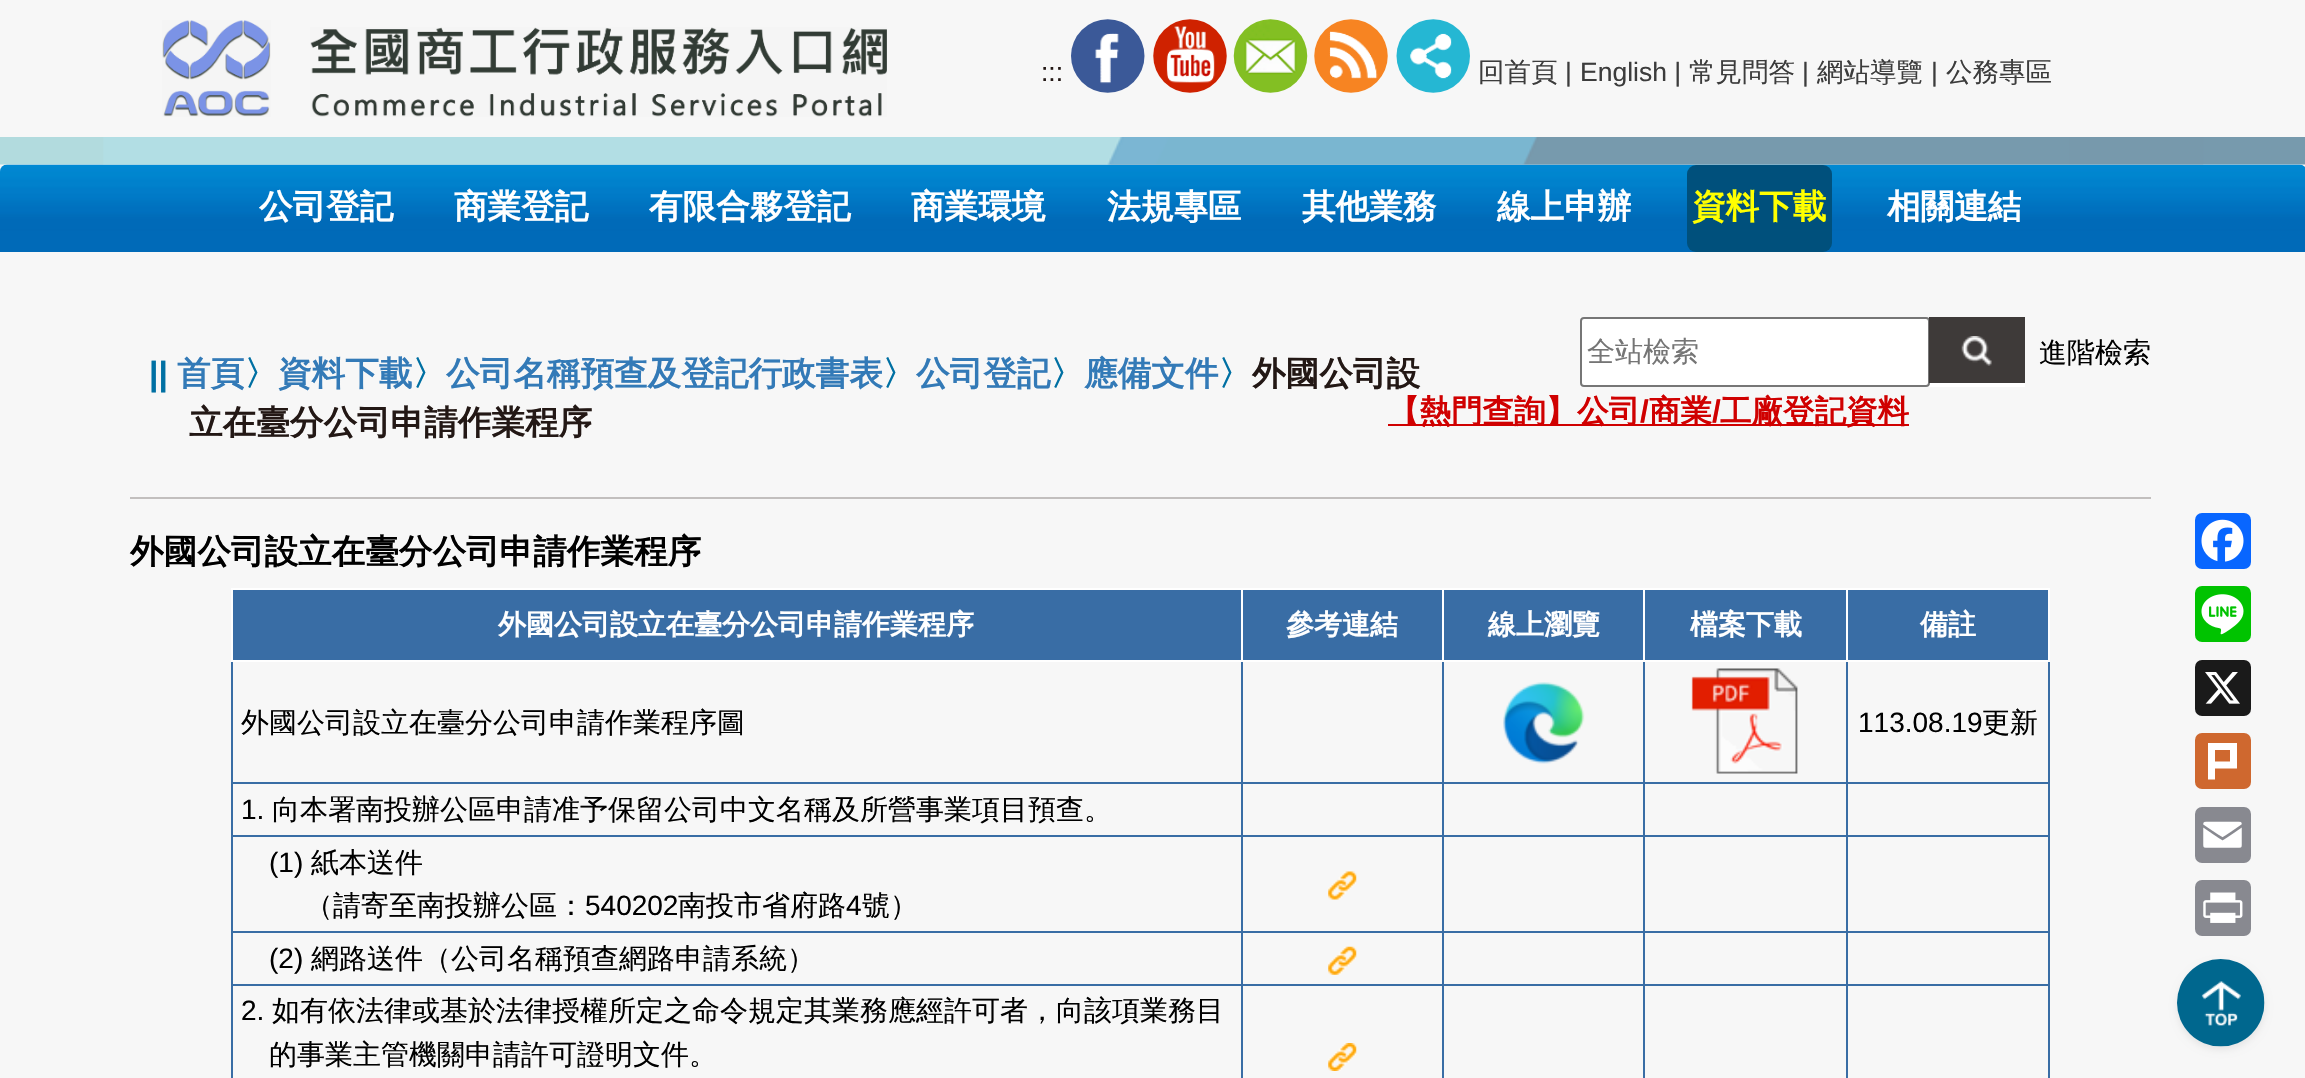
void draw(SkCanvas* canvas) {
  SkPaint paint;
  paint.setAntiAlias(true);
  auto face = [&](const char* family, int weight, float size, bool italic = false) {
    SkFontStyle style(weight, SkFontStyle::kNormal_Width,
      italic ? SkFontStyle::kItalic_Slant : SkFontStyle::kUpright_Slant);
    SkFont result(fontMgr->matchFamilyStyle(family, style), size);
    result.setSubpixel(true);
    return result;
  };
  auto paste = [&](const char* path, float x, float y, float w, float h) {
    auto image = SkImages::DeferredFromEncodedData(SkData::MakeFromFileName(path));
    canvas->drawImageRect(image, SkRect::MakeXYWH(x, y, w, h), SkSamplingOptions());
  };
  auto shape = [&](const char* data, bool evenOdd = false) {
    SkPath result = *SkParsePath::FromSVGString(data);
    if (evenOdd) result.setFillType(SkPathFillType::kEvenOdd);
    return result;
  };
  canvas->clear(0xfff7f7f7);
  paste("img/1.png", 162, 20, 109, 97);
  paste("img/2.png", 310, 27, 577, 90);
  paste("img/3.png", 1071, 19, 74, 74);
  paste("img/4.png", 1153, 19, 74, 74);
  paste("img/5.png", 1233, 19, 75, 74);
  paste("img/6.png", 1314, 19, 74, 74);
  paste("img/7.png", 1396, 19, 74, 74);
  paste("img/8.png", 0, 137, 2305, 28);
  paste("img/10.png", 0, 164, 2305, 88);
  paste("img/9.png", 103, 137, 2101, 28);
  paint.setColor(0xff00507c);
  canvas->drawRoundRect(SkRect::MakeXYWH(1687, 165, 145, 87), 9, 9, paint);
  paint.setColor(0xffffffff);
  canvas->drawRect(SkRect::MakeXYWH(1580, 317, 445, 70), paint);
  paint.setStroke(true);
  paint.setStrokeWidth(2);
  paint.setColor(0xff767676);
  canvas->drawRoundRect(SkRect::MakeXYWH(1581, 318, 348, 68), 3, 3, paint);
  paint.setStroke(false);
  paint.setColor(0xff3e3a39);
  canvas->drawRect(SkRect::MakeXYWH(1929, 317, 96, 66), paint);
  paste("img/11.png", 1961, 336, 31, 30);
  {
    const struct { float x, y, w, h; SkColor color; } items[] = {
      {1388, 424, 521, 2, 0xffd00000},
      {130, 497, 2021, 2, 0xffc2bfbe},
      {233, 590, 1008, 70, 0xff396da5},
      {1846, 588, 203, 2, 0xffffffff},
      {1846, 782, 203, 2, 0xff396da5},
      {1846, 835, 203, 2, 0xff396da5},
      {1846, 931, 203, 2, 0xff396da5},
      {1846, 984, 203, 2, 0xff396da5},
      {2048, 984, 2, 94, 0xff396da5},
      {2048, 931, 2, 54, 0xff396da5},
      {2048, 835, 2, 98, 0xff396da5},
      {2048, 660, 2, 177, 0xff396da5},
      {2048, 588, 2, 74, 0xffffffff},
      {1846, 984, 2, 94, 0xff396da5},
      {1643, 984, 205, 2, 0xff396da5},
      {1846, 931, 2, 54, 0xff396da5},
      {1643, 931, 205, 2, 0xff396da5},
      {1846, 835, 2, 98, 0xff396da5},
      {1643, 835, 205, 2, 0xff396da5},
      {1846, 782, 2, 55, 0xff396da5},
      {1643, 782, 205, 2, 0xff396da5},
      {1846, 660, 2, 124, 0xff396da5},
      {1846, 660, 203, 2, 0xffffffff},
      {1846, 588, 2, 74, 0xffffffff},
      {1643, 588, 205, 2, 0xffffffff},
      {1643, 984, 2, 94, 0xff396da5},
      {1442, 984, 203, 2, 0xff396da5},
      {1643, 931, 2, 54, 0xff396da5},
      {1442, 931, 203, 2, 0xff396da5},
      {1643, 835, 2, 98, 0xff396da5},
      {1442, 835, 203, 2, 0xff396da5},
      {1643, 782, 2, 55, 0xff396da5},
      {1442, 782, 203, 2, 0xff396da5},
      {1643, 660, 2, 124, 0xff396da5},
      {1643, 660, 205, 2, 0xffffffff},
      {1643, 588, 2, 74, 0xffffffff},
      {1442, 588, 203, 2, 0xffffffff},
      {1442, 984, 2, 94, 0xff396da5},
      {1241, 984, 203, 2, 0xff396da5},
      {1442, 931, 2, 54, 0xff396da5},
      {1241, 931, 203, 2, 0xff396da5},
      {1442, 835, 2, 98, 0xff396da5},
      {1241, 835, 203, 2, 0xff396da5},
      {1442, 782, 2, 55, 0xff396da5},
      {1241, 782, 203, 2, 0xff396da5},
      {1442, 660, 2, 124, 0xff396da5},
      {1442, 660, 203, 2, 0xffffffff},
      {1442, 588, 2, 74, 0xffffffff},
      {1241, 588, 203, 2, 0xffffffff},
      {1241, 984, 2, 94, 0xff396da5},
      {231, 984, 1012, 2, 0xff396da5},
      {1241, 931, 2, 54, 0xff396da5},
      {231, 931, 1012, 2, 0xff396da5},
      {1241, 835, 2, 98, 0xff396da5},
      {231, 835, 1012, 2, 0xff396da5},
      {1241, 782, 2, 55, 0xff396da5},
      {231, 782, 1012, 2, 0xff396da5},
      {1241, 660, 2, 124, 0xff396da5},
      {1241, 660, 203, 2, 0xffffffff},
      {1241, 588, 2, 74, 0xffffffff},
      {231, 588, 1012, 2, 0xffffffff},
      {231, 984, 2, 94, 0xff396da5},
      {231, 931, 2, 54, 0xff396da5},
      {231, 835, 2, 98, 0xff396da5},
      {231, 660, 2, 177, 0xff396da5},
      {231, 660, 1012, 2, 0xffffffff},
      {231, 588, 2, 74, 0xffffffff},
      {1243, 590, 199, 70, 0xff396da5},
      {1444, 590, 199, 70, 0xff396da5},
      {1645, 590, 201, 70, 0xff396da5},
      {1848, 590, 200, 70, 0xff396da5},
    };
    for (auto [x, y, w, h, color] : items) {
      paint.setColor(color);
      canvas->drawRect(SkRect::MakeXYWH(x, y, w, h), paint);
    }
  }
  paste("img/12.png", 1503, 682, 82, 82);
  paste("img/13.png", 1691, 668, 107, 106);
  paste("img/14.png", 1328, 871, 29, 29);
  paste("img/15.png", 1328, 946, 29, 29);
  paste("img/16.png", 1328, 1043, 29, 28);
  paint.setColor(0xff0866ff);
  canvas->drawRoundRect(SkRect::MakeXYWH(2195, 513, 56, 56), 7, 7, paint);
  paste("img/17.png", 2201, 519, 43, 43);
  paint.setColor(0xff00c300);
  canvas->drawRoundRect(SkRect::MakeXYWH(2195, 586, 56, 56), 7, 7, paint);
  paste("img/18.png", 2201, 594, 43, 41);
  paint.setColor(0xff1a1a1a);
  canvas->drawRoundRect(SkRect::MakeXYWH(2195, 660, 56, 56), 7, 7, paint);
  paste("img/19.png", 2205, 672, 35, 32);
  paint.setColor(0xffcf682f);
  canvas->drawRoundRect(SkRect::MakeXYWH(2195, 733, 56, 56), 7, 7, paint);
  paint.setColor(0xffffffff);
  canvas->drawPath(shape("M2230 761.5H2215V750H2230ZM2237 768.5V743H2208V779.5H2215V768.5Z"), paint);
  paint.setColor(0xff888990);
  canvas->drawRoundRect(SkRect::MakeXYWH(2195, 807, 56, 56), 7, 7, paint);
  paste("img/20.png", 2203, 821, 39, 27);
  canvas->drawRoundRect(SkRect::MakeXYWH(2195, 880, 56, 56), 7, 7, paint);
  paste("img/21.png", 2203, 892, 40, 31);
  paint.setColor(0x12000000);
  paint.setMaskFilter(SkMaskFilter::MakeBlur(kNormal_SkBlurStyle, 3.5f));
  canvas->drawRoundRect(SkRect::MakeXYWH(2177, 963, 88, 87), 43.5f, 43.5f, paint);
  paint.setMaskFilter(nullptr);
  paste("img/22.png", 2177, 959, 88, 88);
  auto f0 = face("Liberation Sans", 400, 26.5f);
  paint.setColor(0xff231815);
  canvas->drawString(":::", 1041, 81, f0, paint);
  auto f1 = face("WenQuanYi Zen Hei", 500, 26.5f);
  paint.setColor(0xff3c3c3c);
  canvas->drawString("回首頁", 1478, 81, f1, paint);
  canvas->drawString("|", 1565, 81, f0, paint);
  canvas->drawString("English |", 1580, 81, f0, paint);
  canvas->drawString("常見問答", 1689, 81, f1, paint);
  canvas->drawString("|", 1802, 81, f0, paint);
  canvas->drawString("網站導覽", 1817, 81, f1, paint);
  canvas->drawString("|", 1931, 81, f0, paint);
  canvas->drawString("公務專區", 1946, 81, f1, paint);
  auto f2 = face("WenQuanYi Zen Hei", 700, 33.6f);
  paint.setColor(0xffffffff);
  {
    const struct { const char* s; float x, y; } items[] = {
      {"公司登記", 259, 218},
      {"商業登記", 454, 218},
      {"有限合夥登記", 649, 218},
      {"商業環境", 911, 218},
      {"法規專區", 1107, 218},
      {"其他業務", 1302, 218},
      {"線上申辦", 1497, 218},
    };
    for (auto [s, x, y] : items) {
      canvas->drawString(s, x, y, f2, paint);
    }
  }
  paint.setColor(0xffffff00);
  canvas->drawString("資料下載", 1692, 218, f2, paint);
  paint.setColor(0xffffffff);
  canvas->drawString("相關連結", 1887, 218, f2, paint);
  auto f3 = face("Liberation Sans", 700, 33.6f);
  paint.setColor(0xff0070a3);
  canvas->drawString("||", 149, 385, f3, paint);
  paint.setColor(0xff337ab7);
  canvas->drawString("首頁", 177, 385, f2, paint);
  paint.setColor(0xff0070a3);
  canvas->drawString("〉", 244, 385, f2, paint);
  paint.setColor(0xff337ab7);
  canvas->drawString("資料下載", 278, 385, f2, paint);
  paint.setColor(0xff0070a3);
  canvas->drawString("〉", 412, 385, f2, paint);
  paint.setColor(0xff337ab7);
  canvas->drawString("公司名稱預查及登記行政書表", 446, 385, f2, paint);
  paint.setColor(0xff0070a3);
  canvas->drawString("〉", 882, 385, f2, paint);
  paint.setColor(0xff337ab7);
  canvas->drawString("公司登記", 916, 385, f2, paint);
  paint.setColor(0xff0070a3);
  canvas->drawString("〉", 1050, 385, f2, paint);
  paint.setColor(0xff337ab7);
  canvas->drawString("應備文件", 1084, 385, f2, paint);
  paint.setColor(0xff0070a3);
  canvas->drawString("〉", 1218, 385, f2, paint);
  paint.setColor(0xff231815);
  canvas->drawString("外國公司設", 1252, 385, f2, paint);
  canvas->drawString("立在臺分公司申請作業程序", 189, 434, f2, paint);
  auto f4 = face("WenQuanYi Zen Hei", 500, 28);
  paint.setColor(0xff757575);
  canvas->drawString("全站檢索", 1587, 361, f4, paint);
  paint.setColor(0xff000000);
  canvas->drawString("進階檢索", 2039, 362, f4, paint);
  auto f5 = face("WenQuanYi Zen Hei", 700, 31.5f);
  paint.setColor(0xffd00000);
  canvas->drawString("【熱門查詢】公司", 1388, 422, f5, paint);
  auto f6 = face("Liberation Sans", 700, 31.5f);
  canvas->drawString("/", 1640, 422, f6, paint);
  canvas->drawString("商業", 1649, 422, f5, paint);
  canvas->drawString("/", 1712, 422, f6, paint);
  canvas->drawString("工廠登記資料", 1720, 422, f5, paint);
  paint.setColor(0xff000000);
  canvas->drawString("外國公司設立在臺分公司申請作業程序", 130, 563, f2, paint);
  auto f7 = face("WenQuanYi Zen Hei", 700, 28);
  paint.setColor(0xffffffff);
  {
    const struct { const char* s; float x, y; } items[] = {
      {"外國公司設立在臺分公司申請作業程序", 498, 634},
      {"參考連結", 1286, 634},
      {"線上瀏覽", 1488, 634},
      {"檔案下載", 1690, 634},
      {"備註", 1920, 634},
    };
    for (auto [s, x, y] : items) {
      canvas->drawString(s, x, y, f7, paint);
    }
  }
  paint.setColor(0xff000000);
  canvas->drawString("外國公司設立在臺分公司申請作業程序圖", 241, 732, f4, paint);
  auto f8 = face("Liberation Sans", 400, 28);
  canvas->drawString("113.08.19", 1858, 732, f8, paint);
  canvas->drawString("更新", 1982, 732, f4, paint);
  canvas->drawString("1.", 241, 819, f8, paint);
  canvas->drawString("向本署南投辦公區申請准予保留公司中文名稱及所營事業項目預查。", 272, 819, f4, paint);
  canvas->drawString("(1)", 269, 872, f8, paint);
  canvas->drawString("紙本送件", 311, 872, f4, paint);
  canvas->drawString("（請寄至南投辦公區：", 305, 915, f4, paint);
  canvas->drawString("540202", 585, 915, f8, paint);
  canvas->drawString("南投市省府路", 678, 915, f4, paint);
  canvas->drawString("4", 846, 915, f8, paint);
  canvas->drawString("號）", 862, 915, f4, paint);
  canvas->drawString("(2)", 269, 968, f8, paint);
  canvas->drawString("網路送件（公司名稱預查網路申請系統）", 311, 968, f4, paint);
  canvas->drawString("2.", 241, 1020, f8, paint);
  canvas->drawString("如有依法律或基於法律授權所定之命令規定其業務應經許可者，向該項業務目", 272, 1020, f4, paint);
  canvas->drawString("的事業主管機關申請許可證明文件。", 269, 1064, f4, paint);
}
